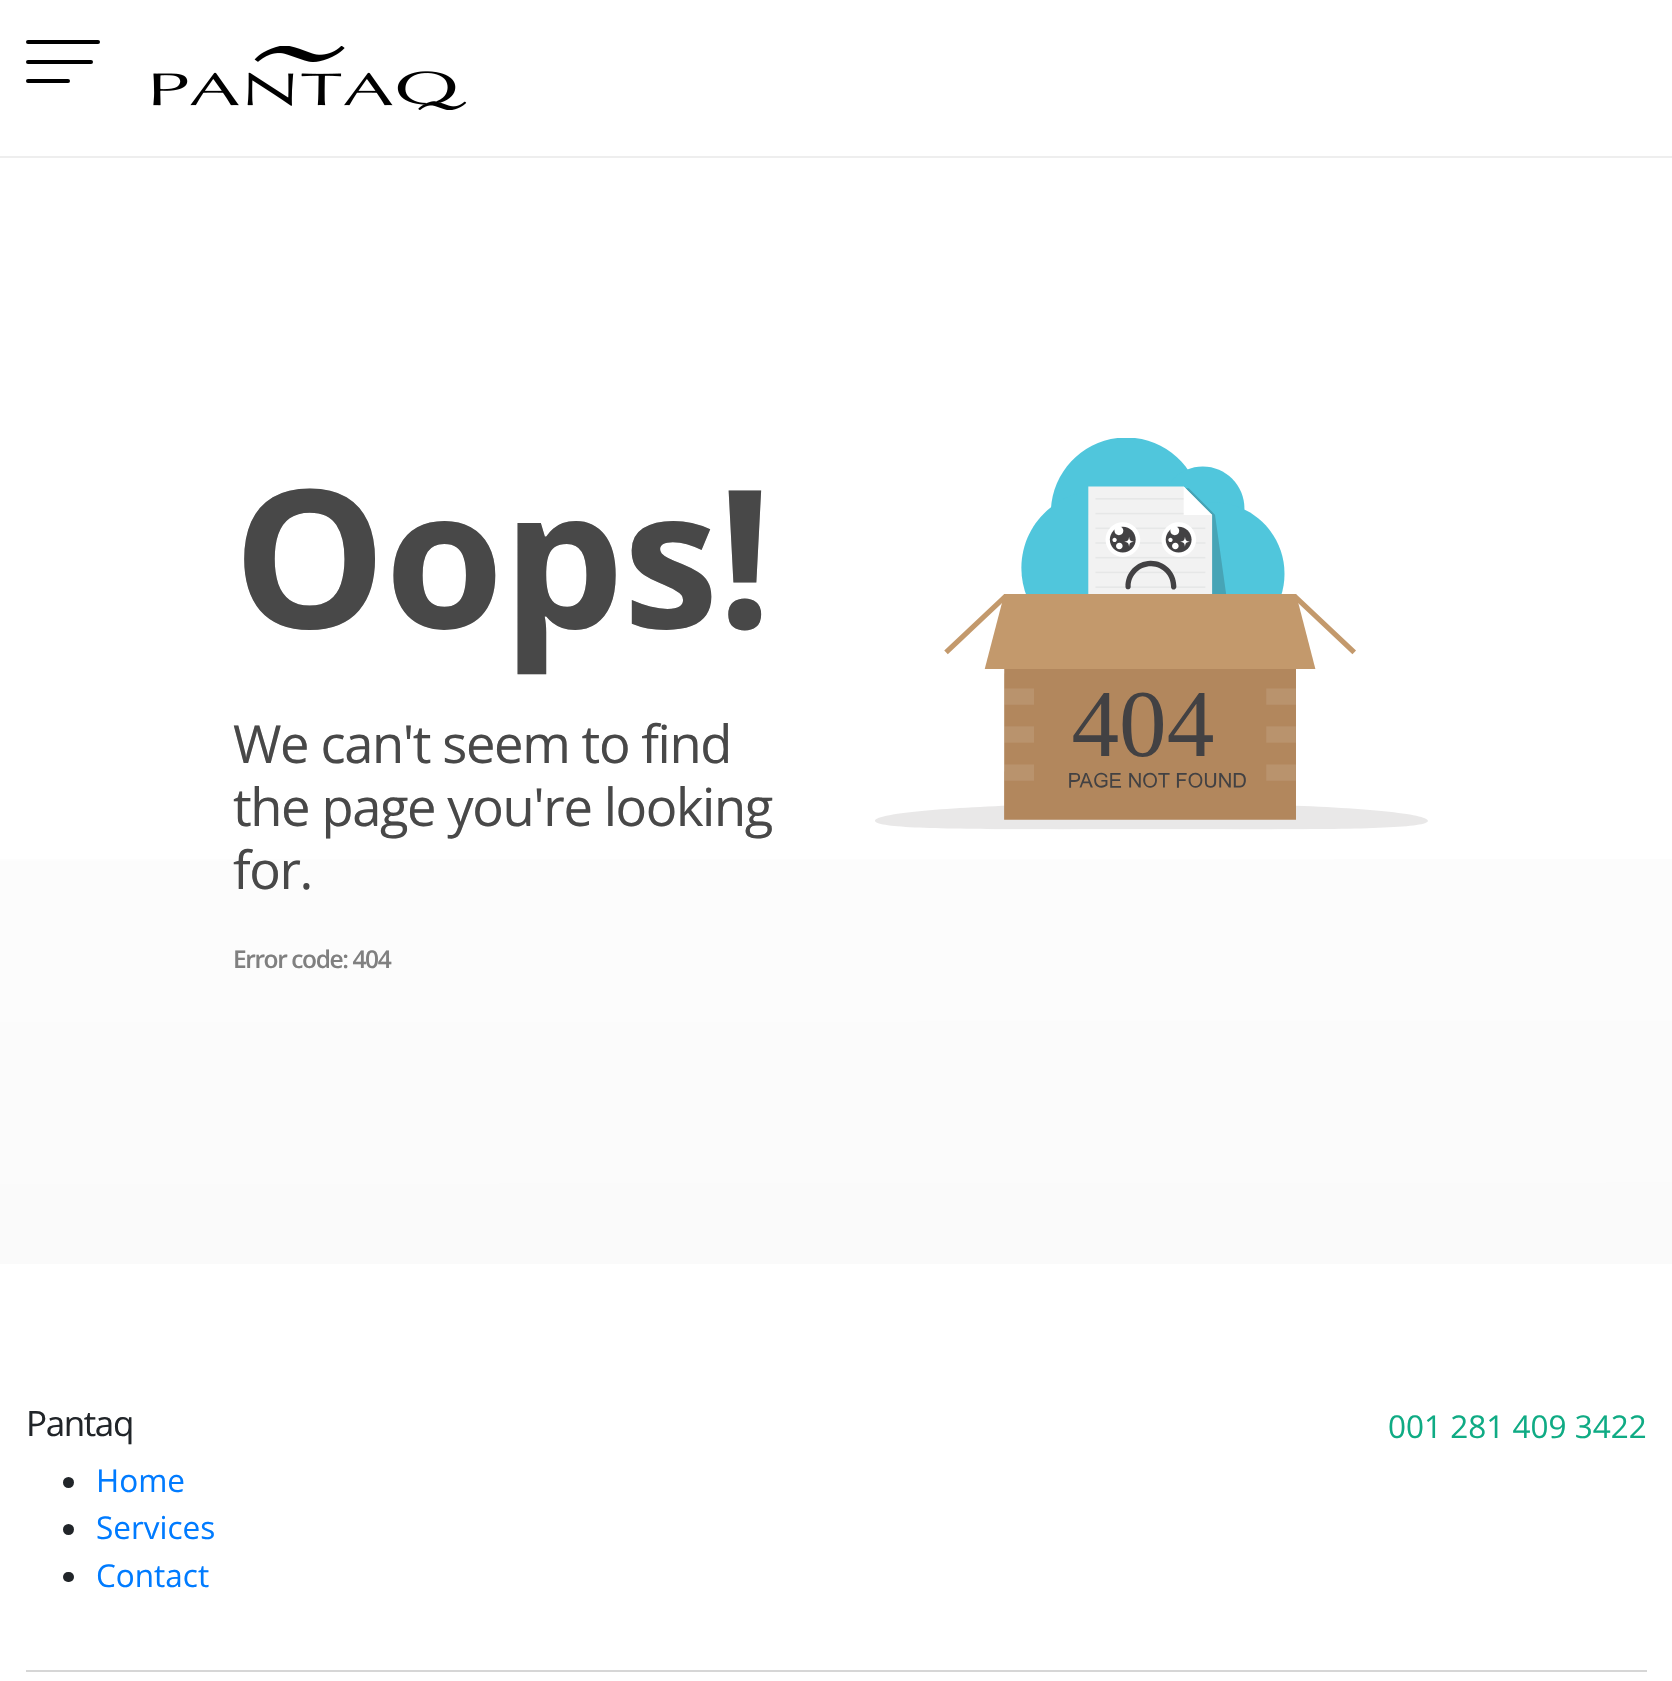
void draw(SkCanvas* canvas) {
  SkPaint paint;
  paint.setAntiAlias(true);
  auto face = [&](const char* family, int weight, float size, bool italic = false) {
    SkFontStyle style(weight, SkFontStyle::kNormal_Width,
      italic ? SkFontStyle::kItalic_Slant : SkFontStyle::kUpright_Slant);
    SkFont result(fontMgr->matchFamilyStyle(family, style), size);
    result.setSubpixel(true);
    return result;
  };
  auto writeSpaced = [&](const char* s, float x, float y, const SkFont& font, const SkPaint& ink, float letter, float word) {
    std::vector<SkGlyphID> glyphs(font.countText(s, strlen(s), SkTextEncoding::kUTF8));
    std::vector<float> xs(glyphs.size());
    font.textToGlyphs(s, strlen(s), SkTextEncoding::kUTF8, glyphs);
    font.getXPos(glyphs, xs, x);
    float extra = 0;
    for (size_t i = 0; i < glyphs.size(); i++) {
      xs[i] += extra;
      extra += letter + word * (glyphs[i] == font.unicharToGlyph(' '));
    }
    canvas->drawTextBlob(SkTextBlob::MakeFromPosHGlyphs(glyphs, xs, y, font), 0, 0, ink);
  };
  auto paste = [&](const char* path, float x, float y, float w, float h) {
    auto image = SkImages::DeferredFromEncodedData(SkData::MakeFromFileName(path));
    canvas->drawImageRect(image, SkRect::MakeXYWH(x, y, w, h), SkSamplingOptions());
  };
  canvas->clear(0xffffffff);
  paint.setColor(0xffeeeeee);
  canvas->drawRect(SkRect::MakeXYWH(0, 156, 1672, 2), paint);
  paint.setColor(0xff000000);
  canvas->drawRoundRect(SkRect::MakeXYWH(26, 40, 74, 4), 2, 2, paint);
  canvas->drawRoundRect(SkRect::MakeXYWH(26, 60, 67, 4), 2, 2, paint);
  canvas->drawRoundRect(SkRect::MakeXYWH(26, 79, 44, 4), 2, 2, paint);
  paste("img/1.png", 153, 46, 314, 64);
  {
    const SkColor colors[] = {0xffffffff, 0xffffffff, 0xfffafafa};
    const float stops[] = {0.01f, 0.27f, 1};
    const SkPoint ends[] = {{836, 157}, {837, 1264}};
    paint.setShader(SkGradientShader::MakeLinear(ends, colors, stops, 3, SkTileMode::kClamp));
    paint.setAlpha(255);
  }
  canvas->drawRect(SkRect::MakeXYWH(0, 859, 1672, 405), paint);
  paste("img/2.png", 875, 438, 553, 392);
  paint.setShader(nullptr);
  paint.setColor(0xff212529);
  canvas->drawCircle(68.5f, 1482.5f, 5.5f, paint);
  canvas->drawCircle(68.5f, 1529.5f, 5.5f, paint);
  canvas->drawRoundRect(SkRect::MakeXYWH(63, 1572, 11, 10), 5, 5, paint);
  paint.setColor(0xffd6d6d6);
  canvas->drawRect(SkRect::MakeXYWH(26, 1670, 1621, 2), paint);
  auto f0 = face("Open Sans", 700, 192.5f);
  paint.setColor(0xff484848);
  writeSpaced("Oops!", 233, 628, f0, paint, -1.4f, 0);
  auto f1 = face("Open Sans", 400, 52.5f);
  {
    const struct { const char* s; float x, y; } items[] = {
      {"We can't seem to find", 233, 763},
      {"the page you're looking", 233, 826},
      {"for.", 233, 889},
    };
    for (auto [s, x, y] : items) {
      writeSpaced(s, x, y, f1, paint, -1.4f, 0);
    }
  }
  auto f2 = face("Open Sans", 600, 24.5f);
  paint.setColor(0xff808080);
  writeSpaced("Error code: 404", 233, 968, f2, paint, -1.4f, 0);
  auto f3 = face("Open Sans", 400, 35);
  paint.setColor(0xff212529);
  writeSpaced("Pantaq", 26, 1436, f3, paint, -1.4f, 0);
  auto f4 = face("Open Sans", 400, 31.5f);
  paint.setColor(0xff007bff);
  {
    const struct { const char* s; float x, y; } items[] = {
      {"Home", 96, 1492},
      {"Services", 96, 1539},
      {"Contact", 96, 1587},
    };
    for (auto [s, x, y] : items) {
      canvas->drawString(s, x, y, f4, paint);
    }
  }
  paint.setColor(0xff0fab84);
  canvas->drawString("001 281 409 3422", 1388, 1438, f4, paint);
}
